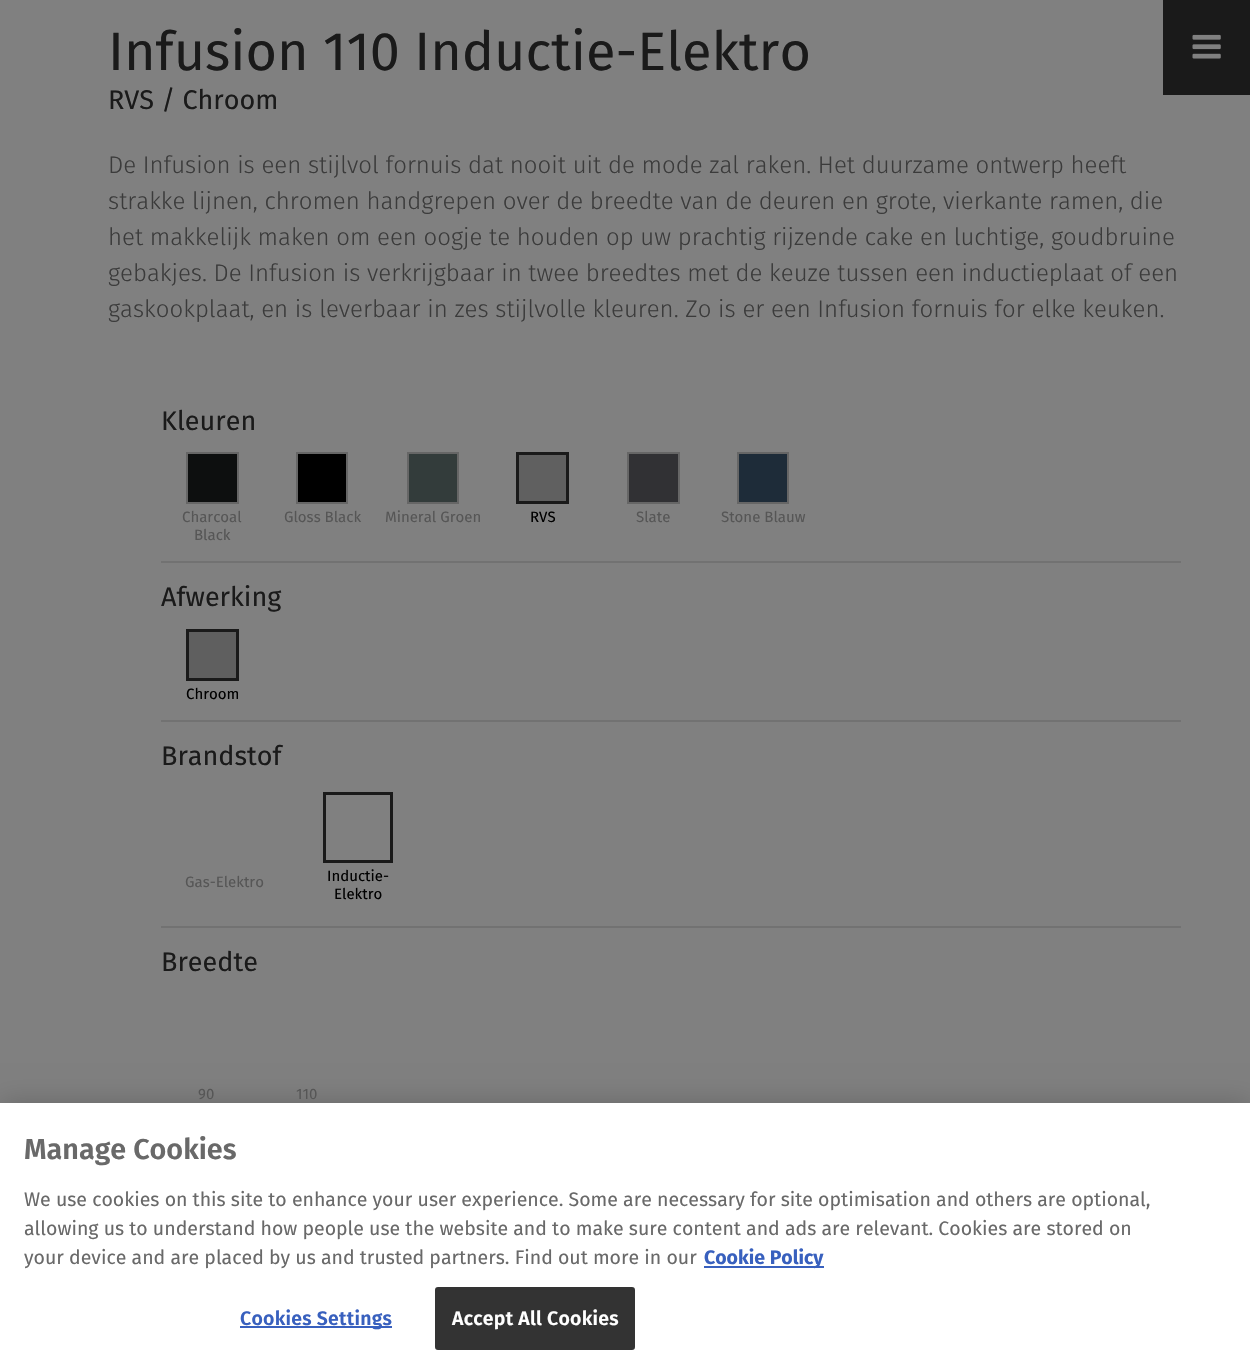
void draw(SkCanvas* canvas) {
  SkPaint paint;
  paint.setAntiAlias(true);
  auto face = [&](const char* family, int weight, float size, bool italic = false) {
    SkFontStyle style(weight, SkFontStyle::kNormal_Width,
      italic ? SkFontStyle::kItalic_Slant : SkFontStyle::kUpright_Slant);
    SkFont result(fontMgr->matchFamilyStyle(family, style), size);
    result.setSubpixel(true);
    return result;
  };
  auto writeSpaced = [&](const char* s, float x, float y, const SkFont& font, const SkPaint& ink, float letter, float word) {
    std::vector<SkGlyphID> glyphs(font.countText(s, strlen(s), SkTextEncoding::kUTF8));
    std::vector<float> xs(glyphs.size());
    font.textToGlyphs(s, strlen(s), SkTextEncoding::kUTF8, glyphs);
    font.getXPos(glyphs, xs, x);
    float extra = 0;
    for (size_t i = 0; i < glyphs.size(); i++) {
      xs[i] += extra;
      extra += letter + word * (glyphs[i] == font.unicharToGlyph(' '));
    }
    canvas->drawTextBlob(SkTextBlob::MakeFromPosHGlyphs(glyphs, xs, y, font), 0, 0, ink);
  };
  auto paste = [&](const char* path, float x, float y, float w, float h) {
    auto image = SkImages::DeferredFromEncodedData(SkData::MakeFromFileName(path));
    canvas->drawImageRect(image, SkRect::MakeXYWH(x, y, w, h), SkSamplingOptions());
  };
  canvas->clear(0xff808080);
  paint.setColor(0xff727272);
  canvas->drawRect(SkRect::MakeXYWH(161, 561, 1020, 2), paint);
  paint.setColor(0xff0d0f0f);
  canvas->drawRect(SkRect::MakeXYWH(187, 453, 51, 50), paint);
  paint.setStroke(true);
  paint.setStrokeWidth(2);
  paint.setColor(0xff666666);
  canvas->drawRect(SkRect::MakeXYWH(187, 453, 51, 50), paint);
  paint.setStroke(false);
  paint.setColor(0xff000000);
  canvas->drawRect(SkRect::MakeXYWH(297, 453, 50, 50), paint);
  paint.setStroke(true);
  paint.setColor(0xff666666);
  canvas->drawRect(SkRect::MakeXYWH(297, 453, 50, 50), paint);
  paint.setStroke(false);
  paint.setColor(0xff333c3b);
  canvas->drawRect(SkRect::MakeXYWH(408, 453, 50, 50), paint);
  paint.setStroke(true);
  paint.setColor(0xff666666);
  canvas->drawRect(SkRect::MakeXYWH(408, 453, 50, 50), paint);
  paint.setStroke(false);
  paint.setColor(0xff606060);
  canvas->drawRect(SkRect::MakeXYWH(517.5f, 453.5f, 50, 49), paint);
  paint.setStroke(true);
  paint.setStrokeWidth(3);
  paint.setColor(0xff1a1a1a);
  canvas->drawRect(SkRect::MakeXYWH(517.5f, 453.5f, 50, 49), paint);
  paint.setStroke(false);
  paint.setColor(0xff313134);
  canvas->drawRect(SkRect::MakeXYWH(628, 453, 51, 50), paint);
  paint.setStroke(true);
  paint.setStrokeWidth(2);
  paint.setColor(0xff666666);
  canvas->drawRect(SkRect::MakeXYWH(628, 453, 51, 50), paint);
  paint.setStroke(false);
  paint.setColor(0xff1e2c39);
  canvas->drawRect(SkRect::MakeXYWH(738, 453, 50, 50), paint);
  paint.setStroke(true);
  paint.setColor(0xff666666);
  canvas->drawRect(SkRect::MakeXYWH(738, 453, 50, 50), paint);
  paint.setStroke(false);
  paint.setColor(0xff727272);
  canvas->drawRect(SkRect::MakeXYWH(161, 720, 1020, 2), paint);
  paint.setColor(0xff5f5f5f);
  canvas->drawRect(SkRect::MakeXYWH(187.5f, 630.5f, 50, 49), paint);
  paint.setStroke(true);
  paint.setStrokeWidth(3);
  paint.setColor(0xff1a1a1a);
  canvas->drawRect(SkRect::MakeXYWH(187.5f, 630.5f, 50, 49), paint);
  paint.setStroke(false);
  paint.setColor(0xff727272);
  canvas->drawRect(SkRect::MakeXYWH(161, 926, 1020, 2), paint);
  paint.setStroke(true);
  paint.setColor(0xff1a1a1a);
  canvas->drawRect(SkRect::MakeXYWH(324.5f, 793.5f, 67, 68), paint);
  paint.setStroke(false);
  canvas->drawRect(SkRect::MakeXYWH(1163, 0, 87, 95), paint);
  paste("img/1.png", 1192, 34, 29, 25);
  paint.setColor(0x33000000);
  paint.setMaskFilter(SkMaskFilter::MakeBlur(kNormal_SkBlurStyle, 13.5f));
  canvas->drawRect(SkRect::MakeXYWH(0, 1103, 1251, 262), paint);
  paint.setMaskFilter(nullptr);
  {
    const struct { float x, y, w, h; SkColor color; } items[] = {
      {0, 1103, 1250, 262, 0xffffffff},
      {704, 1266, 120, 2, 0xff3860be},
      {240, 1326, 152, 2, 0xff3860be},
    };
    for (auto [x, y, w, h, color] : items) {
      paint.setColor(color);
      canvas->drawRect(SkRect::MakeXYWH(x, y, w, h), paint);
    }
  }
  paint.setColor(0xff333333);
  canvas->drawRoundRect(SkRect::MakeXYWH(436, 1288, 198, 61), 2, 2, paint);
  paint.setStroke(true);
  paint.setStrokeWidth(2);
  canvas->drawRoundRect(SkRect::MakeXYWH(436, 1288, 198, 61), 2, 2, paint);
  auto f0 = face("Fira Sans", 400, 54);
  paint.setStroke(false);
  paint.setColor(0xff1a1a1a);
  canvas->drawString("Infusion 110 Inductie-Elektro", 108, 70, f0, paint);
  auto f1 = face("Fira Sans", 400, 27);
  canvas->drawString("RVS / Chroom", 108, 109, f1, paint);
  auto f2 = face("Fira Sans", 300, 24);
  paint.setColor(0xff3b3b3b);
  {
    const struct { const char* s; float x, y; } items[] = {
      {"De Infusion is een stijlvol fornuis dat nooit uit de mode zal raken. Het duurzame ontwerp heeft", 108, 173},
      {"strakke lijnen, chromen handgrepen over de breedte van de deuren en grote, vierkante ramen, die", 108, 209},
      {"het makkelijk maken om een oogje te houden op uw prachtig rijzende cake en luchtige, goudbruine", 108, 245},
      {"gebakjes. De Infusion is verkrijgbaar in twee breedtes met de keuze tussen een inductieplaat of een", 108, 281},
      {"gaskookplaat, en is leverbaar in zes stijlvolle kleuren. Zo is er een Infusion fornuis for elke keuken.", 108, 317},
    };
    for (auto [s, x, y] : items) {
      canvas->drawString(s, x, y, f2, paint);
    }
  }
  paint.setColor(0xff1a1a1a);
  canvas->drawString("Kleuren", 161, 430, f1, paint);
  auto f3 = face("Fira Sans", 400, 15);
  paint.setColor(0xff565656);
  {
    const struct { const char* s; float x, y; } items[] = {
      {"Charcoal", 182, 522},
      {"Black", 194, 540},
      {"Gloss Black", 284, 522},
      {"Mineral Groen", 385, 522},
    };
    for (auto [s, x, y] : items) {
      canvas->drawString(s, x, y, f3, paint);
    }
  }
  paint.setColor(0xff000000);
  canvas->drawString("RVS", 530, 522, f3, paint);
  paint.setColor(0xff565656);
  canvas->drawString("Slate", 636, 522, f3, paint);
  canvas->drawString("Stone Blauw", 721, 522, f3, paint);
  paint.setColor(0xff1a1a1a);
  canvas->drawString("Afwerking", 161, 606, f1, paint);
  paint.setColor(0xff000000);
  canvas->drawString("Chroom", 186, 699, f3, paint);
  paint.setColor(0xff1a1a1a);
  canvas->drawString("Brandstof", 161, 765, f1, paint);
  paint.setColor(0xff565656);
  canvas->drawString("Gas-Elektro", 185, 887, f3, paint);
  paint.setColor(0xff000000);
  canvas->drawString("Inductie-", 327, 881, f3, paint);
  canvas->drawString("Elektro", 334, 899, f3, paint);
  paint.setColor(0xff1a1a1a);
  canvas->drawString("Breedte", 161, 971, f1, paint);
  paint.setColor(0xff565656);
  canvas->drawString("90", 198, 1099, f3, paint);
  canvas->drawString("110", 296, 1099, f3, paint);
  auto f4 = face("Fira Sans", 600, 28.75f);
  paint.setColor(0xff696969);
  canvas->drawString("Manage Cookies", 24, 1159, f4, paint);
  auto f5 = face("Fira Sans", 400, 19.5f);
  {
    const struct { const char* s; float x, y; } items[] = {
      {"We use cookies on this site to enhance your user experience. Some are necessary for site optimisation and others are optional,", 24, 1206},
      {"allowing us to understand how people use the website and to make sure content and ads are relevant. Cookies are stored on", 24, 1235},
      {"your device and are placed by us and trusted partners. Find out more in our", 24, 1264},
    };
    for (auto [s, x, y] : items) {
      canvas->drawString(s, x, y, f5, paint);
    }
  }
  auto f6 = face("Fira Sans", 700, 19.5f);
  paint.setColor(0xff3860be);
  canvas->drawString("Cookie Policy", 704, 1264, f6, paint);
  auto f7 = face("Fira Sans", 600, 19.5f);
  writeSpaced("Cookies Settings", 240, 1325, f7, paint, 0.25f, 0);
  paint.setColor(0xffffffff);
  writeSpaced("Accept All Cookies", 452, 1325, f7, paint, 0.25f, 0);
}
